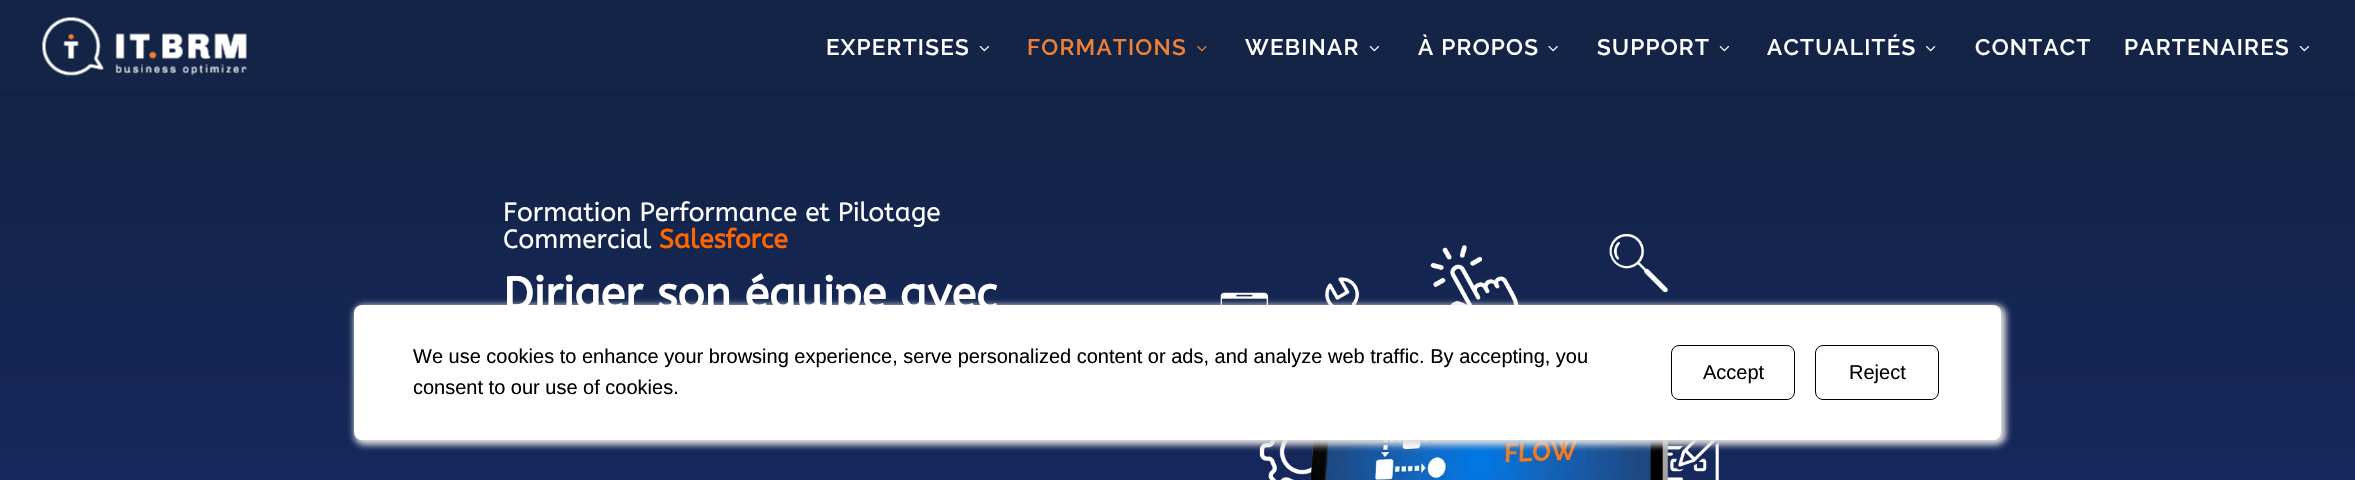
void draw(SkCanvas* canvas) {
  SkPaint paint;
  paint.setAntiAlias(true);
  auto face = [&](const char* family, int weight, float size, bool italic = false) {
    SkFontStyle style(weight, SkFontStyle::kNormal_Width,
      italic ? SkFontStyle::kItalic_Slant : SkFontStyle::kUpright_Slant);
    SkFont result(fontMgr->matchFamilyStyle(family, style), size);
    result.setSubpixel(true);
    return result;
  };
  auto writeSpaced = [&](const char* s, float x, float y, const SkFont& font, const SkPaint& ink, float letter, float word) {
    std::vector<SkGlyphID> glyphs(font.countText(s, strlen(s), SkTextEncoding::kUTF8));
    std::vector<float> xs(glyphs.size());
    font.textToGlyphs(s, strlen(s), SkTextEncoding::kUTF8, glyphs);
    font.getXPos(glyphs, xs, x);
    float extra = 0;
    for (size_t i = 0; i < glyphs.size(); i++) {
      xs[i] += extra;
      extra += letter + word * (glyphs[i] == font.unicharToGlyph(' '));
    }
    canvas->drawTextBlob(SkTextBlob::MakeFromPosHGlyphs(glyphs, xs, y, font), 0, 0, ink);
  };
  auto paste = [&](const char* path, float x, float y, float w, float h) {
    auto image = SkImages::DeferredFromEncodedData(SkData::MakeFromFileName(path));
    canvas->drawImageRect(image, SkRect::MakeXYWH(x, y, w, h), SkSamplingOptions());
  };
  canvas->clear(0xffffffff);
  paint.setColor(0xff11203f);
  canvas->drawRect(SkRect::MakeXYWH(0, 95, 2355, 1), paint);
  paint.setColor(0xff132446);
  canvas->drawRect(SkRect::MakeXYWH(0, 0, 2355, 95), paint);
  paste("img/1.png", 42, 17, 205, 59);
  paste("img/2.png", 979, 46, 10, 6);
  paste("img/3.png", 1197, 46, 10, 6);
  paste("img/2.png", 1369, 46, 10, 6);
  paste("img/4.png", 1548, 46, 10, 6);
  paste("img/2.png", 1719, 46, 10, 6);
  paste("img/5.png", 1926, 46, 10, 6);
  paste("img/2.png", 2299, 46, 10, 6);
  {
    const SkColor colors[] = {0xff132446, 0xff172a70};
    const float stops[] = {0, 1};
    const SkPoint ends[] = {{1178, 95}, {1178, 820}};
    paint.setShader(SkGradientShader::MakeLinear(ends, colors, stops, 2, SkTileMode::kClamp));
    paint.setAlpha(255);
  }
  canvas->drawRect(SkRect::MakeXYWH(0, 96, 2355, 384), paint);
  paste("img/6.png", 1220, 234, 499, 246);
  paint.setShader(nullptr);
  paint.setColor(0xffdddddd);
  paint.setMaskFilter(SkMaskFilter::MakeBlur(kNormal_SkBlurStyle, 3));
  canvas->drawRoundRect(SkRect::MakeXYWH(354, 305, 1652, 140), 10, 10, paint);
  paint.setMaskFilter(nullptr);
  paint.setColor(0xffffffff);
  canvas->drawRoundRect(SkRect::MakeXYWH(354, 305, 1647, 135), 8, 8, paint);
  paint.setStroke(true);
  paint.setStrokeWidth(1);
  paint.setColor(0xff000000);
  canvas->drawRoundRect(SkRect::MakeXYWH(1671.5f, 345.5f, 123, 54), 7.5f, 7.5f, paint);
  canvas->drawRoundRect(SkRect::MakeXYWH(1815.5f, 345.5f, 123, 54), 7.5f, 7.5f, paint);
  auto f0 = face("Raleway", 600, 22.5f);
  paint.setStroke(false);
  paint.setColor(0xffffffff);
  writeSpaced("EXPERTISES", 826, 55, f0, paint, 1.25f, 0);
  paint.setColor(0xfff18035);
  writeSpaced("FORMATIONS", 1027, 55, f0, paint, 1.25f, 0);
  paint.setColor(0xffffffff);
  {
    const struct { const char* s; float x, y; } items[] = {
      {"WEBINAR", 1245, 55},
      {"À PROPOS", 1418, 55},
      {"SUPPORT", 1597, 55},
      {"ACTUALITÉS", 1767, 55},
      {"CONTACT", 1975, 55},
      {"PARTENAIRES", 2124, 55},
    };
    for (auto [s, x, y] : items) {
      writeSpaced(s, x, y, f0, paint, 1.25f, 0);
    }
  }
  auto f1 = face("ABeeZee", 400, 26.25f);
  canvas->drawString("Formation Performance et Pilotage", 503, 221, f1, paint);
  canvas->drawString("Commercial", 503, 248, f1, paint);
  auto f2 = face("ABeeZee", 700, 26.25f);
  paint.setColor(0xffff6600);
  canvas->drawString("Salesforce", 659, 248, f2, paint);
  auto f3 = face("ABeeZee", 700, 45);
  paint.setColor(0xffffffff);
  canvas->drawString("Diriger son équipe avec", 503, 309, f3, paint);
  auto f4 = face("Liberation Sans", 400, 20);
  paint.setColor(0xff000000);
  {
    const struct { const char* s; float x, y; } items[] = {
      {"We use cookies to enhance your browsing experience, serve personalized content or ads, and analyze web traffic. By accepting, you", 413, 363},
      {"consent to our use of cookies.", 413, 394},
      {"Accept", 1703, 379},
      {"Reject", 1849, 379},
    };
    for (auto [s, x, y] : items) {
      canvas->drawString(s, x, y, f4, paint);
    }
  }
}
